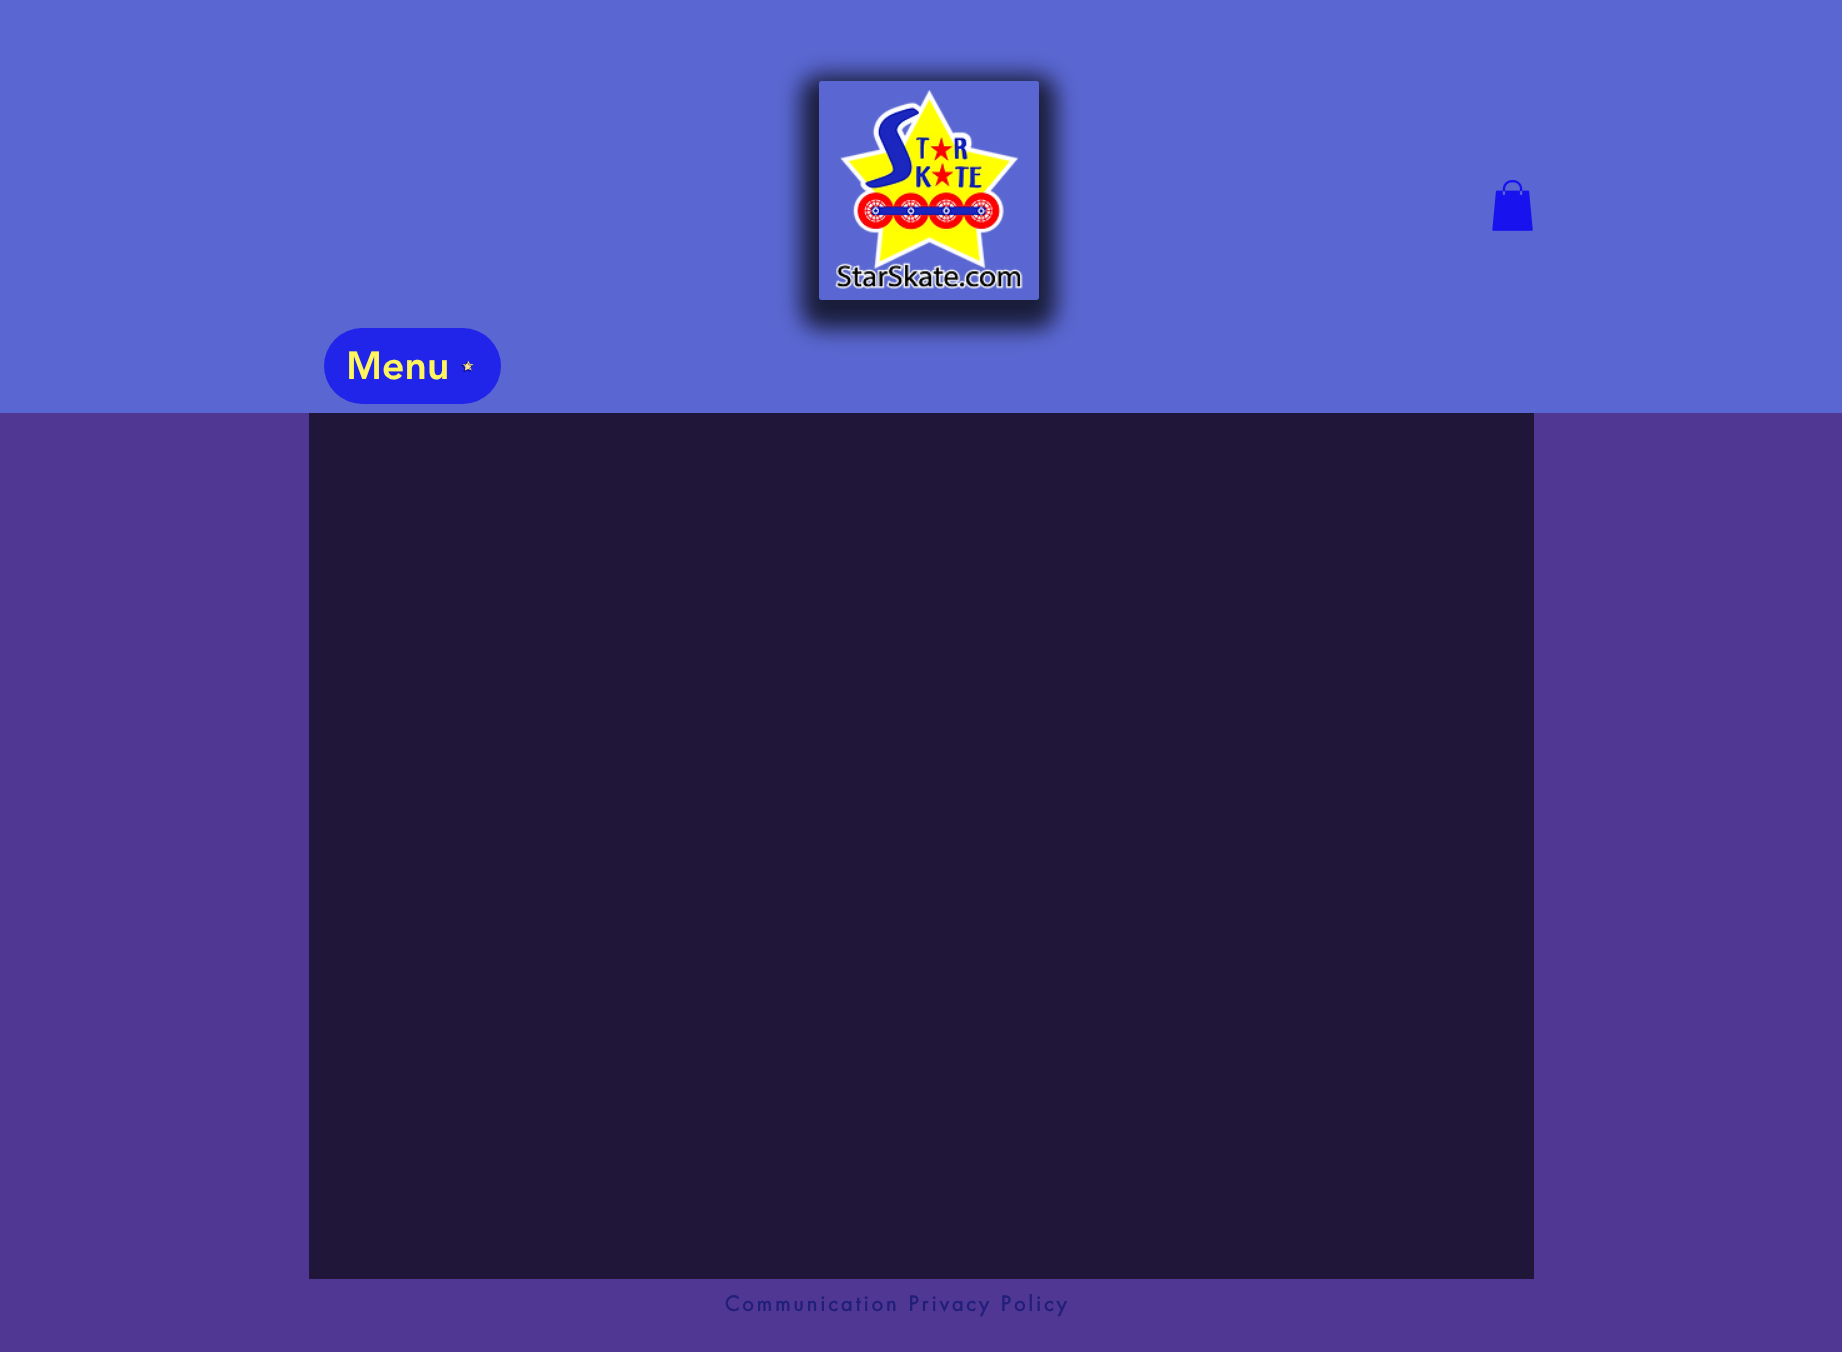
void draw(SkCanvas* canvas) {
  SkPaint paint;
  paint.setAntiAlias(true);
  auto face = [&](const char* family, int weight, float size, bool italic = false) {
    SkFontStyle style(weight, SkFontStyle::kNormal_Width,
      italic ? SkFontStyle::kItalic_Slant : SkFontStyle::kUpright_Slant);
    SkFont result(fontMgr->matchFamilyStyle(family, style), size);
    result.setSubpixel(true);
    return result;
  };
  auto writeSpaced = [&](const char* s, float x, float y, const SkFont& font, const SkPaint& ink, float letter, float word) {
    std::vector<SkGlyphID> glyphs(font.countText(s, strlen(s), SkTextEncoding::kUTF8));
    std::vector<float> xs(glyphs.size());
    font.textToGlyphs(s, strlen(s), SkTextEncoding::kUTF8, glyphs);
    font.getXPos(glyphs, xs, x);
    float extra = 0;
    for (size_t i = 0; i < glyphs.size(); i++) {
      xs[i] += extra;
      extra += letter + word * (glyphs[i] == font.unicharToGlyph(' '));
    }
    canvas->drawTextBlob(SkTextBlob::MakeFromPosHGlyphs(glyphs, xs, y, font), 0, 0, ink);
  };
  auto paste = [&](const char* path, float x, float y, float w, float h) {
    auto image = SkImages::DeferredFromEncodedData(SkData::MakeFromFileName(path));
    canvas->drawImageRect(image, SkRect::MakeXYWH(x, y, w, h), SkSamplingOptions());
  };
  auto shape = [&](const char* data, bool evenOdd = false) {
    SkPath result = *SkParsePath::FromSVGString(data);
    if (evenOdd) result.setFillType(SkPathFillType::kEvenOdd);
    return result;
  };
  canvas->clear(0xff4f3793);
  paint.setColor(0xff5a67d2);
  canvas->drawRect(SkRect::MakeXYWH(0, 0, 1842, 413), paint);
  canvas->save();
  canvas->clipPath(shape("M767 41H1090V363H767ZM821.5 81H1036.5C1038 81 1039 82 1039 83.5V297.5C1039 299 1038 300 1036.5 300H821.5C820 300 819 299 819 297.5V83.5C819 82 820 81 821.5 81Z", true), true);
  paint.setColor(0xb8000000);
  paint.setMaskFilter(SkMaskFilter::MakeBlur(kNormal_SkBlurStyle, 11));
  canvas->drawRoundRect(SkRect::MakeXYWH(801, 75, 255, 254), 20, 20, paint);
  paint.setMaskFilter(nullptr);
  canvas->restore();
  paste("img/1.png", 835, 89, 188, 200);
  paste("img/2.png", 1492, 180, 41, 51);
  paint.setColor(0xff2124e9);
  canvas->drawRoundRect(SkRect::MakeXYWH(324, 328, 177, 76), 38, 38, paint);
  paste("img/3.png", 461, 360, 13, 12);
  paint.setColor(0xff20163a);
  canvas->drawRect(SkRect::MakeXYWH(309, 413, 1225, 866), paint);
  auto f0 = face("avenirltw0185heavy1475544", 900, 39);
  paint.setColor(0xfffff55e);
  canvas->drawString("Menu", 346, 379, f0, paint);
  auto f1 = face("futura", 700, 20);
  paint.setColor(0xff221f7b);
  writeSpaced("Communication Privacy Policy", 725, 1311, f1, paint, 3, 0);
}
